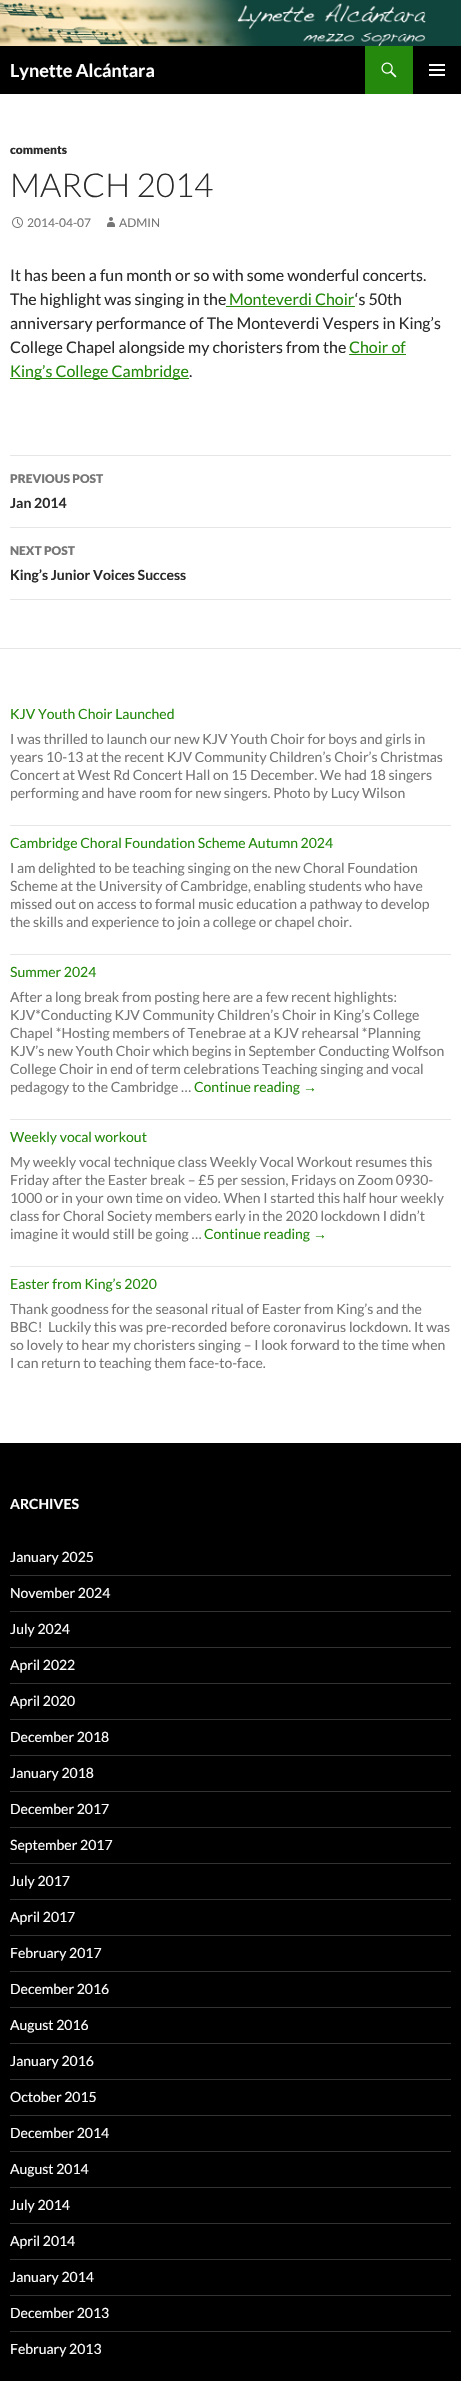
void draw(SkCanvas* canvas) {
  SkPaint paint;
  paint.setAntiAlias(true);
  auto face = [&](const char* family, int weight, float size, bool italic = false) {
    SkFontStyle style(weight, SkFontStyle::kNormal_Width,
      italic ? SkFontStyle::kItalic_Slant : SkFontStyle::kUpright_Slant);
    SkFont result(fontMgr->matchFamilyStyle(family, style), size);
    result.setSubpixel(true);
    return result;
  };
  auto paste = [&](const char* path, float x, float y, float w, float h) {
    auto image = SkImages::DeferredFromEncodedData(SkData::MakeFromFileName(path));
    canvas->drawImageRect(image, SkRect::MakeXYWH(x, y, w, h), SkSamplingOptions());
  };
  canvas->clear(0xffffffff);
  paste("img/1.png", 0, 0, 461, 46);
  paint.setColor(0xff000000);
  canvas->drawRect(SkRect::MakeXYWH(0, 46, 461, 48), paint);
  paint.setColor(0xff24890d);
  canvas->drawRect(SkRect::MakeXYWH(365, 46, 48, 48), paint);
  paste("img/2.png", 381, 62, 16, 16);
  paste("img/3.png", 429, 64, 16, 12);
  paste("img/4.png", 12, 217, 11, 11);
  paste("img/5.png", 107, 217, 8, 10);
  {
    const struct { float x, y, w, h; SkColor color; } items[] = {
      {226, 306, 129, 1, 0xff24890d},
      {349, 354, 57, 1, 0xff24890d},
      {10, 378, 179, 1, 0xff24890d},
      {10, 455, 441, 1, 0xffe6e6e6},
      {10, 527, 441, 1, 0xffe6e6e6},
      {10, 599, 441, 1, 0xffe6e6e6},
      {0, 648, 461, 1, 0xffe6e6e6},
      {10, 825, 441, 1, 0xffe6e6e6},
      {10, 954, 441, 1, 0xffe6e6e6},
      {10, 1119, 441, 1, 0xffe6e6e6},
      {10, 1266, 441, 1, 0xffe6e6e6},
      {0, 1443, 461, 938, 0xff000000},
      {10, 1575, 441, 1, 0xff333333},
      {10, 1611, 441, 1, 0xff333333},
      {10, 1647, 441, 1, 0xff333333},
      {10, 1683, 441, 1, 0xff333333},
      {10, 1719, 441, 1, 0xff333333},
      {10, 1755, 441, 1, 0xff333333},
      {10, 1791, 441, 1, 0xff333333},
      {10, 1827, 441, 1, 0xff333333},
      {10, 1863, 441, 1, 0xff333333},
      {10, 1899, 441, 1, 0xff333333},
      {10, 1935, 441, 1, 0xff333333},
      {10, 1971, 441, 1, 0xff333333},
      {10, 2007, 441, 1, 0xff333333},
      {10, 2043, 441, 1, 0xff333333},
      {10, 2079, 441, 1, 0xff333333},
      {10, 2115, 441, 1, 0xff333333},
      {10, 2151, 441, 1, 0xff333333},
      {10, 2187, 441, 1, 0xff333333},
      {10, 2223, 441, 1, 0xff333333},
      {10, 2259, 441, 1, 0xff333333},
      {10, 2295, 441, 1, 0xff333333},
      {10, 2331, 441, 1, 0xff333333},
    };
    for (auto [x, y, w, h, color] : items) {
      paint.setColor(color);
      canvas->drawRect(SkRect::MakeXYWH(x, y, w, h), paint);
    }
  }
  auto f0 = face("Lato", 700, 18);
  paint.setColor(0xffffffff);
  canvas->drawString("Lynette Alcántara", 10, 77, f0, paint);
  auto f1 = face("Lato", 900, 12);
  paint.setColor(0xff2b2b2b);
  canvas->drawString("comments", 10, 154, f1, paint);
  auto f2 = face("Lato", 300, 33);
  canvas->drawString("MARCH 2014", 10, 197, f2, paint);
  auto f3 = face("Lato", 400, 12);
  paint.setColor(0xff767676);
  canvas->drawString("2014-04-07", 27, 227, f3, paint);
  canvas->drawString("ADMIN", 119, 227, f3, paint);
  auto f4 = face("Lato", 400, 16);
  paint.setColor(0xff2b2b2b);
  canvas->drawString("It has been a fun month or so with some wonderful concerts.", 10, 281, f4, paint);
  canvas->drawString("The highlight was singing in the", 10, 305, f4, paint);
  paint.setColor(0xff24890d);
  canvas->drawString("Monteverdi Choir", 229, 305, f4, paint);
  paint.setColor(0xff2b2b2b);
  {
    const struct { const char* s; float x, y; } items[] = {
      {"‘s 50th", 355, 305},
      {"anniversary performance of The Monteverdi Vespers in King’s", 10, 329},
      {"College Chapel alongside my choristers from the", 10, 353},
    };
    for (auto [s, x, y] : items) {
      canvas->drawString(s, x, y, f4, paint);
    }
  }
  paint.setColor(0xff24890d);
  canvas->drawString("Choir of", 349, 353, f4, paint);
  canvas->drawString("King’s College Cambridge", 10, 377, f4, paint);
  paint.setColor(0xff2b2b2b);
  canvas->drawString(".", 189, 377, f4, paint);
  paint.setColor(0xff767676);
  canvas->drawString("PREVIOUS POST", 10, 483, f1, paint);
  auto f5 = face("Lato", 700, 14);
  paint.setColor(0xff2b2b2b);
  canvas->drawString("Jan 2014", 10, 508, f5, paint);
  paint.setColor(0xff767676);
  canvas->drawString("NEXT POST", 10, 555, f1, paint);
  paint.setColor(0xff2b2b2b);
  canvas->drawString("King’s Junior Voices Success", 10, 580, f5, paint);
  auto f6 = face("Lato", 400, 14);
  paint.setColor(0xff24890d);
  canvas->drawString("KJV Youth Choir Launched", 10, 719, f6, paint);
  paint.setColor(0xff767676);
  {
    const struct { const char* s; float x, y; } items[] = {
      {"I was thrilled to launch our new KJV Youth Choir for boys and girls in", 10, 744},
      {"years 10-13 at the recent KJV Community Children’s Choir’s Christmas", 10, 762},
      {"Concert at West Rd Concert Hall on 15 December. We had 18 singers", 10, 780},
      {"performing and have room for new singers. Photo by Lucy Wilson", 10, 798},
    };
    for (auto [s, x, y] : items) {
      canvas->drawString(s, x, y, f6, paint);
    }
  }
  paint.setColor(0xff24890d);
  canvas->drawString("Cambridge Choral Foundation Scheme Autumn 2024", 10, 848, f6, paint);
  paint.setColor(0xff767676);
  {
    const struct { const char* s; float x, y; } items[] = {
      {"I am delighted to be teaching singing on the new Choral Foundation", 10, 873},
      {"Scheme at the University of Cambridge, enabling students who have", 10, 891},
      {"missed out on access to formal music education a pathway to develop", 10, 909},
      {"the skills and experience to join a college or chapel choir.", 10, 927},
    };
    for (auto [s, x, y] : items) {
      canvas->drawString(s, x, y, f6, paint);
    }
  }
  paint.setColor(0xff24890d);
  canvas->drawString("Summer 2024", 10, 977, f6, paint);
  paint.setColor(0xff767676);
  {
    const struct { const char* s; float x, y; } items[] = {
      {"After a long break from posting here are a few recent highlights:", 10, 1002},
      {"KJV*Conducting KJV Community Children’s Choir in King’s College", 10, 1020},
      {"Chapel *Hosting members of Tenebrae at a KJV rehearsal *Planning", 10, 1038},
      {"KJV’s new Youth Choir which begins in September Conducting Wolfson", 10, 1056},
      {"College Choir in end of term celebrations Teaching singing and vocal", 10, 1074},
      {"pedagogy to the Cambridge …", 10, 1092},
    };
    for (auto [s, x, y] : items) {
      canvas->drawString(s, x, y, f6, paint);
    }
  }
  paint.setColor(0xff24890d);
  canvas->drawString("Continue reading", 194, 1092, f6, paint);
  auto f7 = face("Liberation Sans", 400, 14);
  canvas->drawString("→", 303, 1092, f7, paint);
  canvas->drawString("Weekly vocal workout", 10, 1142, f6, paint);
  paint.setColor(0xff767676);
  {
    const struct { const char* s; float x, y; } items[] = {
      {"My weekly vocal technique class Weekly Vocal Workout resumes this", 10, 1167},
      {"Friday after the Easter break – £5 per session, Fridays on Zoom 0930-", 10, 1185},
      {"1000 or in your own time on video. When I started this half hour weekly", 10, 1203},
      {"class for Choral Society members early in the 2020 lockdown I didn’t", 10, 1221},
      {"imagine it would still be going …", 10, 1239},
    };
    for (auto [s, x, y] : items) {
      canvas->drawString(s, x, y, f6, paint);
    }
  }
  paint.setColor(0xff24890d);
  canvas->drawString("Continue reading", 204, 1239, f6, paint);
  canvas->drawString("→", 313, 1239, f7, paint);
  canvas->drawString("Easter from King’s 2020", 10, 1289, f6, paint);
  paint.setColor(0xff767676);
  {
    const struct { const char* s; float x, y; } items[] = {
      {"Thank goodness for the seasonal ritual of Easter from King’s and the", 10, 1314},
      {"BBC!  Luckily this was pre-recorded before coronavirus lockdown. It was", 10, 1332},
      {"so lovely to hear my choristers singing – I look forward to the time when", 10, 1350},
      {"I can return to teaching them face-to-face.", 10, 1368},
    };
    for (auto [s, x, y] : items) {
      canvas->drawString(s, x, y, f6, paint);
    }
  }
  paint.setColor(0xffffffff);
  canvas->drawString("ARCHIVES", 10, 1509, f5, paint);
  {
    const struct { const char* s; float x, y; } items[] = {
      {"January 2025", 10, 1562},
      {"November 2024", 10, 1598},
      {"July 2024", 10, 1634},
      {"April 2022", 10, 1670},
      {"April 2020", 10, 1706},
      {"December 2018", 10, 1742},
      {"January 2018", 10, 1778},
      {"December 2017", 10, 1814},
      {"September 2017", 10, 1850},
      {"July 2017", 10, 1886},
      {"April 2017", 10, 1922},
      {"February 2017", 10, 1958},
      {"December 2016", 10, 1994},
      {"August 2016", 10, 2030},
      {"January 2016", 10, 2066},
      {"October 2015", 10, 2102},
      {"December 2014", 10, 2138},
      {"August 2014", 10, 2174},
      {"July 2014", 10, 2210},
      {"April 2014", 10, 2246},
      {"January 2014", 10, 2282},
      {"December 2013", 10, 2318},
      {"February 2013", 10, 2354},
    };
    for (auto [s, x, y] : items) {
      canvas->drawString(s, x, y, f6, paint);
    }
  }
}
